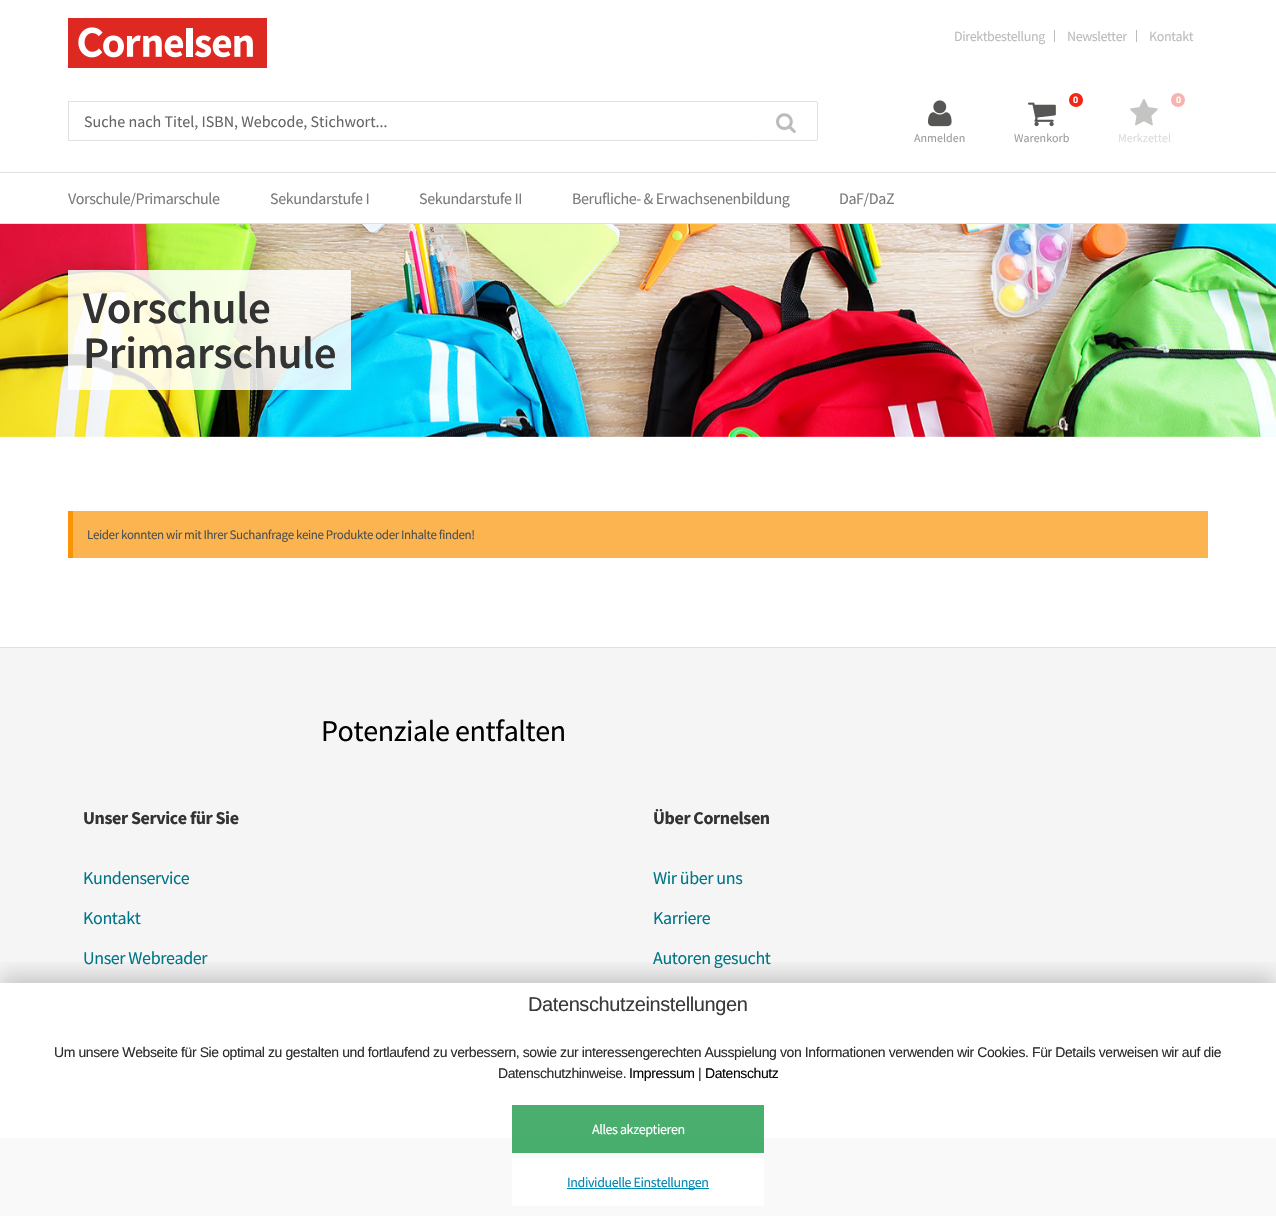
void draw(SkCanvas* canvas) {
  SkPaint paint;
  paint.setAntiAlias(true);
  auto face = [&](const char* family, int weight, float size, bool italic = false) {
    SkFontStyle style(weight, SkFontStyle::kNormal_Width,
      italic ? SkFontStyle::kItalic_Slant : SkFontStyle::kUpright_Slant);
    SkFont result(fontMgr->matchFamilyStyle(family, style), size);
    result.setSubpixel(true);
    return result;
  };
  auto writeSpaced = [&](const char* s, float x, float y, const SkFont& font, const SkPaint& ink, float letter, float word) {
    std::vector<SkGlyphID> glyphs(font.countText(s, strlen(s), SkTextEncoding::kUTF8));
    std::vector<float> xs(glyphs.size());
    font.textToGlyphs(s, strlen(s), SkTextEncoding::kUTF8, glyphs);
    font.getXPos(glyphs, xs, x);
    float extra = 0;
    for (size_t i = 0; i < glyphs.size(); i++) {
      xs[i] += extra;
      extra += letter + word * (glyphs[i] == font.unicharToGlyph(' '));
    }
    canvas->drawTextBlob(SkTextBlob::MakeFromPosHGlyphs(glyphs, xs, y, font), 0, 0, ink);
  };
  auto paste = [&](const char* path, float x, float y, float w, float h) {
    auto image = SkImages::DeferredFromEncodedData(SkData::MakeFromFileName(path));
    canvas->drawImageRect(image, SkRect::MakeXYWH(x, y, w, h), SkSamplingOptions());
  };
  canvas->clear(0xffffffff);
  paste("img/1.png", 68, 18, 199, 50);
  {
    const struct { float x, y, w, h; SkColor color; } items[] = {
      {1054, 30, 1, 12, 0xffbcbcbc},
      {1136, 30, 1, 12, 0xffbcbcbc},
      {0, 172, 1276, 1, 0xffe0e0e0},
      {0, 223, 1276, 1, 0xffe0e0e0},
    };
    for (auto [x, y, w, h, color] : items) {
      paint.setColor(color);
      canvas->drawRect(SkRect::MakeXYWH(x, y, w, h), paint);
    }
  }
  paste("img/2.png", 928, 100, 24, 27);
  paint.setColor(0xfff22613);
  canvas->drawCircle(1076, 100, 7, paint);
  paste("img/3.png", 1028, 102, 28, 25);
  paste("img/4.png", 1130, 99, 28, 27);
  paint.setColor(0xfffab3ac);
  canvas->drawCircle(1178, 100, 7, paint);
  {
    const struct { float x, y, w, h; SkColor color; } items[] = {
      {68, 101, 687, 1, 0xffe0e0e0},
      {68, 140, 687, 1, 0xffe0e0e0},
      {68, 101, 1, 40, 0xffe0e0e0},
    };
    for (auto [x, y, w, h, color] : items) {
      paint.setColor(color);
      canvas->drawRect(SkRect::MakeXYWH(x, y, w, h), paint);
    }
  }
  paint.setColor(0xffffffff);
  canvas->drawRoundRect(SkRect::MakeXYWH(754, 101, 64, 40), 2, 2, paint);
  {
    const struct { float x, y, w, h; SkColor color; } items[] = {
      {755, 101, 62, 1, 0xffe0e0e0},
      {817, 102, 1, 38, 0xffe0e0e0},
      {755, 140, 62, 1, 0xffe0e0e0},
    };
    for (auto [x, y, w, h, color] : items) {
      paint.setColor(color);
      canvas->drawRect(SkRect::MakeXYWH(x, y, w, h), paint);
    }
  }
  paste("img/5.png", 776, 113, 20, 20);
  paste("img/6.png", 0, 224, 1276, 213);
  {
    const struct { float x, y, w, h; SkColor color; } items[] = {
      {68, 270, 283, 120, 0xd9ffffff},
      {73, 511, 1135, 47, 0xfffbb450},
      {68, 511, 5, 47, 0xfff89406},
      {0, 648, 1276, 335, 0xfff5f5f5},
      {512, 1105, 252, 33, 0xff49ae6e},
      {0, 647, 1276, 1, 0xffe0e0e0},
      {0, 1138, 1276, 78, 0xfff9f9f9},
      {512, 1138, 252, 15, 0xff48ae6e},
    };
    for (auto [x, y, w, h, color] : items) {
      paint.setColor(color);
      canvas->drawRect(SkRect::MakeXYWH(x, y, w, h), paint);
    }
  }
  canvas->save();
  canvas->clipRect(SkRect::MakeXYWH(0, 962, 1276, 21));
  paint.setColor(0x30000000);
  paint.setMaskFilter(SkMaskFilter::MakeBlur(kNormal_SkBlurStyle, 10));
  canvas->drawRect(SkRect::MakeXYWH(0, 975, 1276, 233), paint);
  paint.setMaskFilter(nullptr);
  canvas->restore();
  paint.setColor(0xf7ffffff);
  canvas->drawRect(SkRect::MakeXYWH(512, 1158, 252, 48), paint);
  paint.setColor(0xff0289b6);
  canvas->drawRect(SkRect::MakeXYWH(567, 1188, 142, 1), paint);
  auto f0 = face("Source Sans Pro", 400, 14);
  paint.setColor(0xffbcbcbc);
  {
    const struct { const char* s; float x, y; } items[] = {
      {"Direktbestellung", 954, 41},
      {"Newsletter", 1067, 41},
      {"Kontakt", 1149, 41},
    };
    for (auto [s, x, y] : items) {
      writeSpaced(s, x, y, f0, paint, -0.4f, 0);
    }
  }
  auto f1 = face("Source Sans Pro", 400, 12);
  paint.setColor(0xff9c9c9c);
  canvas->drawString("Anmelden", 914, 142, f1, paint);
  auto f2 = face("Roboto", 700, 9);
  paint.setColor(0xffffffff);
  writeSpaced("0", 1073, 103, f2, paint, -0.4f, 0);
  paint.setColor(0xff9c9c9c);
  canvas->drawString("Warenkorb", 1014, 142, f1, paint);
  paint.setColor(0xffffffff);
  writeSpaced("0", 1176, 103, f2, paint, -0.4f, 0);
  paint.setColor(0xffdcdcdc);
  canvas->drawString("Merkzettel", 1118, 142, f1, paint);
  auto f3 = face("Source Sans Pro", 400, 16);
  paint.setColor(0xff7b7b7b);
  writeSpaced("Vorschule/Primarschule", 68, 204, f3, paint, -0.4f, 0);
  writeSpaced("Sekundarstufe I", 270, 204, f3, paint, -0.4f, 0);
  paint.setColor(0xffffffff);
  canvas->drawRect(SkRect::MakeXYWH(270, 195, 1, 13), paint);
  paint.setColor(0xff7b7b7b);
  writeSpaced("Sekundarstufe II", 419, 204, f3, paint, -0.4f, 0);
  paint.setColor(0xffffffff);
  canvas->drawRect(SkRect::MakeXYWH(419, 196, 1, 12), paint);
  paint.setColor(0xff7b7b7b);
  writeSpaced("Berufliche- & Erwachsenenbildung", 572, 204, f3, paint, -0.4f, 0);
  writeSpaced("DaF/DaZ", 839, 204, f3, paint, -0.4f, 0);
  paint.setColor(0xff666666);
  canvas->drawString("Suche nach Titel, ISBN, Webcode, Stichwort...", 84, 127, f3, paint);
  auto f4 = face("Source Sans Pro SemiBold", 600, 45);
  paint.setColor(0xff333333);
  writeSpaced("Vorschule", 83, 323, f4, paint, -0.4f, 0);
  writeSpaced("Primarschule", 83, 368, f4, paint, -0.4f, 0);
  auto f5 = face("Source Sans Pro", 400, 13);
  paint.setColor(0xff505050);
  writeSpaced("Leider konnten wir mit Ihrer Suchanfrage keine Produkte oder Inhalte finden!", 87, 539, f5, paint, -0.4f, 0);
  auto f6 = face("Source Sans Pro", 400, 30);
  paint.setColor(0xff000000);
  writeSpaced("Potenziale entfalten", 321, 741, f6, paint, -0.4f, 0);
  auto f7 = face("Source Sans Pro", 700, 18);
  paint.setColor(0xff333333);
  writeSpaced("Unser Service für Sie", 83, 824, f7, paint, -0.4f, 0);
  auto f8 = face("Source Sans Pro", 400, 18);
  paint.setColor(0xff007688);
  {
    const struct { const char* s; float x, y; } items[] = {
      {"Kundenservice", 83, 884},
      {"Kontakt", 83, 924},
      {"Unser Webreader", 83, 964},
    };
    for (auto [s, x, y] : items) {
      writeSpaced(s, x, y, f8, paint, -0.4f, 0);
    }
  }
  paint.setColor(0xff333333);
  writeSpaced("Über Cornelsen", 653, 824, f7, paint, -0.4f, 0);
  paint.setColor(0xff007688);
  {
    const struct { const char* s; float x, y; } items[] = {
      {"Wir über uns", 653, 884},
      {"Karriere", 653, 924},
      {"Autoren gesucht", 653, 964},
    };
    for (auto [s, x, y] : items) {
      writeSpaced(s, x, y, f8, paint, -0.4f, 0);
    }
  }
  auto f9 = face("Liberation Sans", 400, 20);
  paint.setColor(0xff393939);
  writeSpaced("Datenschutzeinstellungen", 528, 1011, f9, paint, -0.4f, 0);
  auto f10 = face("Liberation Sans", 400, 14);
  paint.setColor(0xff2c2c2c);
  writeSpaced("Um unsere Webseite für Sie optimal zu gestalten und fortlaufend zu verbessern, sowie zur interessengerechten Ausspielung von Informationen verwenden wir Cookies. Für Details verweisen wir auf die", 54, 1057, f10, paint, -0.4f, 0);
  writeSpaced("Datenschutzhinweise.", 498, 1078, f10, paint, -0.4f, 0);
  paint.setColor(0xff070707);
  writeSpaced("Impressum", 629, 1078, f10, paint, -0.4f, 0);
  paint.setColor(0xff2c2c2c);
  writeSpaced("|", 698, 1078, f10, paint, -0.4f, 0);
  paint.setColor(0xff070707);
  writeSpaced("Datenschutz", 705, 1078, f10, paint, -0.4f, 0);
  paint.setColor(0xffffffff);
  writeSpaced("Alles akzeptieren", 592, 1134, f0, paint, -0.4f, 0);
  paint.setColor(0xff0289b6);
  writeSpaced("Individuelle Einstellungen", 567, 1187, f0, paint, -0.4f, 0);
}
